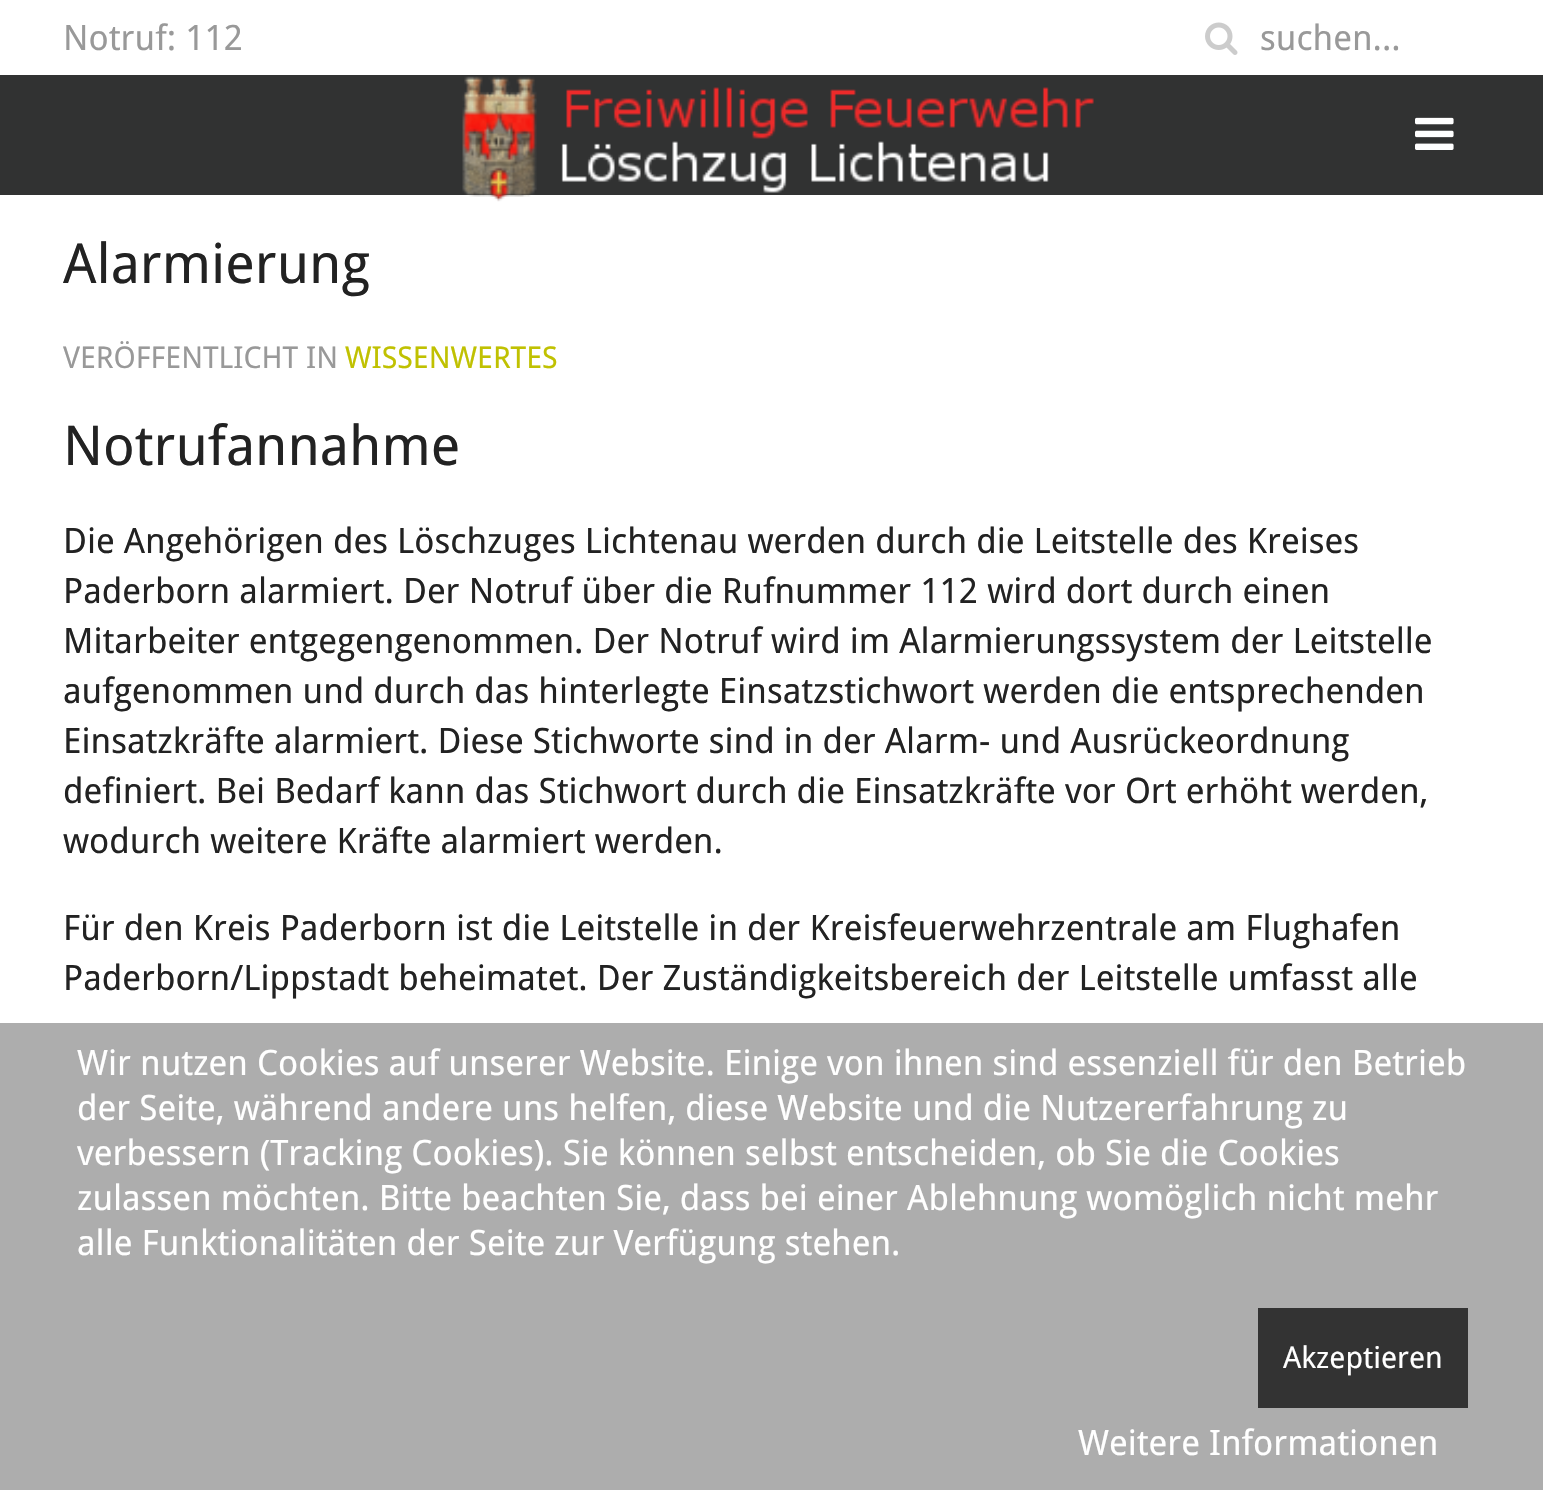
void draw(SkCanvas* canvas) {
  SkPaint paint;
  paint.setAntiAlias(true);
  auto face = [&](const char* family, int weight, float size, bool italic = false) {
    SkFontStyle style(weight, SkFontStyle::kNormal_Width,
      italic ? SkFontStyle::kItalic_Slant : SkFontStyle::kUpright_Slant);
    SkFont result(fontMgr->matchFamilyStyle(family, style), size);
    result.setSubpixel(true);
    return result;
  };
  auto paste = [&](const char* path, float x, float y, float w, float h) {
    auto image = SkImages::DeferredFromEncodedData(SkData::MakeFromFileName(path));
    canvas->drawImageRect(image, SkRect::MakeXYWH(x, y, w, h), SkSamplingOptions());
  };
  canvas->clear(0xff313232);
  paint.setColor(0xffffffff);
  canvas->drawRect(SkRect::MakeXYWH(0, 0, 1543, 75), paint);
  paste("img/1.png", 1205, 22, 33, 33);
  canvas->drawRect(SkRect::MakeXYWH(0, 195, 1543, 828), paint);
  paste("img/2.png", 462, 76, 632, 126);
  paste("img/3.png", 1415, 117, 39, 33);
  paint.setColor(0xffadadad);
  canvas->drawRect(SkRect::MakeXYWH(0, 1023, 1543, 467), paint);
  paint.setColor(0xff333333);
  canvas->drawRect(SkRect::MakeXYWH(1258, 1308, 210, 100), paint);
  auto f0 = face("Droid Sans", 400, 35);
  paint.setColor(0xff999999);
  canvas->drawString("Notruf: 112", 63, 50, f0, paint);
  canvas->drawString("suchen...", 1260, 50, f0, paint);
  auto f1 = face("Droid Sans", 400, 55);
  paint.setColor(0xff222222);
  canvas->drawString("Alarmierung", 63, 283, f1, paint);
  auto f2 = face("Droid Sans", 400, 30);
  paint.setColor(0xff999999);
  canvas->drawString("VERÖFFENTLICHT IN", 63, 368, f2, paint);
  paint.setColor(0xffc0c101);
  canvas->drawString("WISSENWERTES", 345, 368, f2, paint);
  paint.setColor(0xff222222);
  canvas->drawString("Notrufannahme", 63, 465, f1, paint);
  {
    const struct { const char* s; float x, y; } items[] = {
      {"Die Angehörigen des Löschzuges Lichtenau werden durch die Leitstelle des Kreises", 63, 553},
      {"Paderborn alarmiert. Der Notruf über die Rufnummer 112 wird dort durch einen", 63, 603},
      {"Mitarbeiter entgegengenommen. Der Notruf wird im Alarmierungssystem der Leitstelle", 63, 653},
      {"aufgenommen und durch das hinterlegte Einsatzstichwort werden die entsprechenden", 63, 703},
      {"Einsatzkräfte alarmiert. Diese Stichworte sind in der Alarm- und Ausrückeordnung", 63, 753},
      {"definiert. Bei Bedarf kann das Stichwort durch die Einsatzkräfte vor Ort erhöht werden,", 63, 803},
      {"wodurch weitere Kräfte alarmiert werden.", 63, 853},
      {"Für den Kreis Paderborn ist die Leitstelle in der Kreisfeuerwehrzentrale am Flughafen", 63, 940},
      {"Paderborn/Lippstadt beheimatet. Der Zuständigkeitsbereich der Leitstelle umfasst alle", 63, 990},
    };
    for (auto [s, x, y] : items) {
      canvas->drawString(s, x, y, f0, paint);
    }
  }
  paint.setColor(0xffffffff);
  {
    const struct { const char* s; float x, y; } items[] = {
      {"Wir nutzen Cookies auf unserer Website. Einige von ihnen sind essenziell für den Betrieb", 77, 1075},
      {"der Seite, während andere uns helfen, diese Website und die Nutzererfahrung zu", 77, 1120},
      {"verbessern (Tracking Cookies). Sie können selbst entscheiden, ob Sie die Cookies", 77, 1165},
      {"zulassen möchten. Bitte beachten Sie, dass bei einer Ablehnung womöglich nicht mehr", 77, 1210},
      {"alle Funktionalitäten der Seite zur Verfügung stehen.", 77, 1255},
    };
    for (auto [s, x, y] : items) {
      canvas->drawString(s, x, y, f0, paint);
    }
  }
  canvas->drawString("Akzeptieren", 1283, 1368, f2, paint);
  canvas->drawString("Weitere Informationen", 1078, 1455, f0, paint);
}
